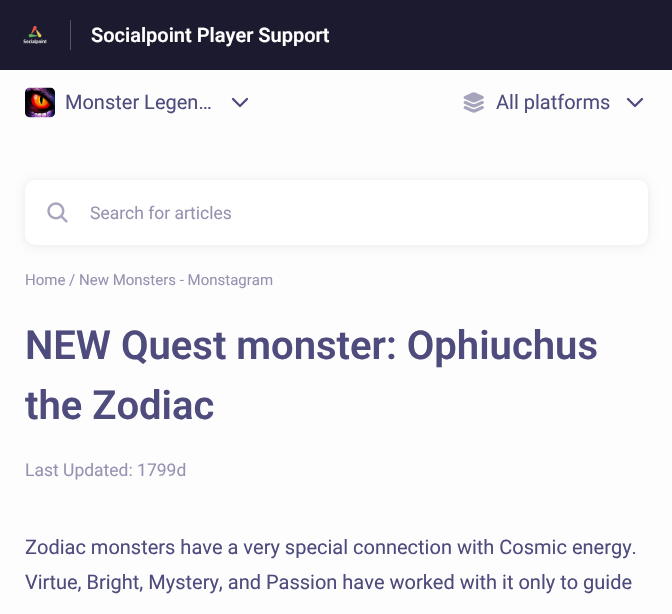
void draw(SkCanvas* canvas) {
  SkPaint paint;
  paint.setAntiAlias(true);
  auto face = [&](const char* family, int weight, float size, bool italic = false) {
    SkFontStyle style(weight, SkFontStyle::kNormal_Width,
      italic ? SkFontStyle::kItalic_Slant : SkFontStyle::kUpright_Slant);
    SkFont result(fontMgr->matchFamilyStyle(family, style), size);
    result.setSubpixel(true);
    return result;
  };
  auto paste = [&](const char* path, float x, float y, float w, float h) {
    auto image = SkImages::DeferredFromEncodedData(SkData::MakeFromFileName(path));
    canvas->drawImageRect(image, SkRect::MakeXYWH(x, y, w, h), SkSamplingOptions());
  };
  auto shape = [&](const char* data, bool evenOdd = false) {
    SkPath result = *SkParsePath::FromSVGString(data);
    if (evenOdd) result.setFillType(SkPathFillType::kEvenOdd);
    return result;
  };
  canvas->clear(0xfffdfdfd);
  paint.setColor(0xff1b1a2e);
  canvas->drawRect(SkRect::MakeXYWH(0, 0, 672, 70), paint);
  paint.setColor(0xff545362);
  canvas->drawRect(SkRect::MakeXYWH(70, 20, 1, 30), paint);
  paste("img/1.png", 23, 26, 24, 18);
  paste("img/2.png", 25, 87, 30, 31);
  paint.setStroke(true);
  paint.setStrokeWidth(2.3f);
  paint.setStrokeCap(SkPaint::kRound_Cap);
  paint.setStrokeJoin(SkPaint::kRound_Join);
  paint.setColor(0xff4e4b7d);
  canvas->drawPath(shape("M233 99L240 106L247 99"), paint);
  paste("img/3.png", 463, 92, 21, 21);
  canvas->drawPath(shape("M628 99L635 106L642 99"), paint);
  paint.setStroke(false);
  paint.setColor(0x14000000);
  paint.setMaskFilter(SkMaskFilter::MakeBlur(kNormal_SkBlurStyle, 5));
  canvas->drawRoundRect(SkRect::MakeXYWH(25, 181, 623, 65), 10, 10, paint);
  paint.setMaskFilter(nullptr);
  paint.setColor(0xffffffff);
  canvas->drawRoundRect(SkRect::MakeXYWH(25, 180, 623, 65), 10, 10, paint);
  paste("img/4.png", 47, 202, 21, 21);
  auto f0 = face("Roboto", 600, 20);
  canvas->drawString("Socialpoint Player Support", 91, 42, f0, paint);
  auto f1 = face("Roboto", 400, 20);
  paint.setColor(0xff4e4b7d);
  canvas->drawString("Monster Legen…", 65, 109, f1, paint);
  canvas->drawString("All platforms", 496, 109, f1, paint);
  auto f2 = face("Roboto", 400, 17.5f);
  paint.setColor(0xff9593b1);
  canvas->drawString("Search for articles", 90, 219, f2, paint);
  auto f3 = face("Roboto", 400, 15);
  canvas->drawString("Home / New Monsters - Monstagram", 25, 285, f3, paint);
  auto f4 = face("Roboto", 600, 40);
  paint.setColor(0xff4e4b7d);
  canvas->drawString("NEW Quest monster: Ophiuchus", 25, 359, f4, paint);
  canvas->drawString("the Zodiac", 25, 419, f4, paint);
  paint.setColor(0xff9593b1);
  canvas->drawString("Last Updated: 1799d", 25, 476, f2, paint);
  paint.setColor(0xff4e4b7d);
  canvas->drawString("Zodiac monsters have a very special connection with Cosmic energy.", 25, 554, f1, paint);
  canvas->drawString("Virtue, Bright, Mystery, and Passion have worked with it only to guide", 25, 589, f1, paint);
}
